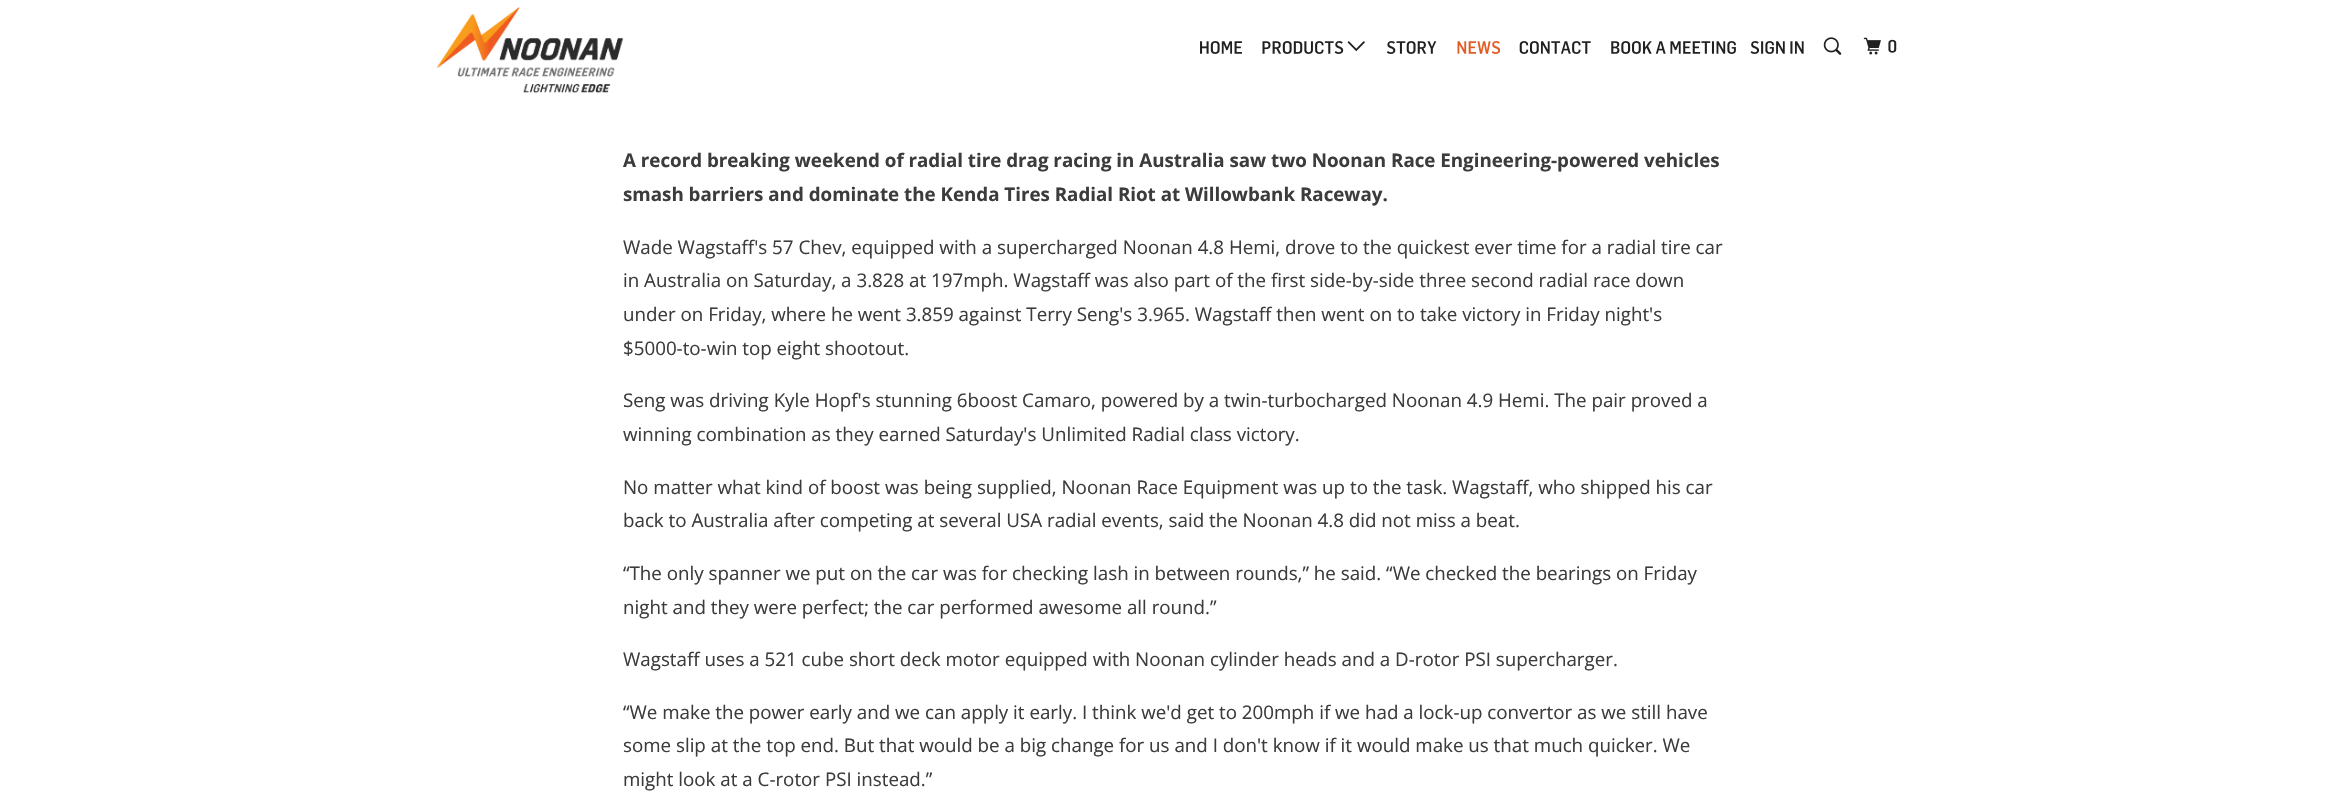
void draw(SkCanvas* canvas) {
  SkPaint paint;
  paint.setAntiAlias(true);
  auto face = [&](const char* family, int weight, float size, bool italic = false) {
    SkFontStyle style(weight, SkFontStyle::kNormal_Width,
      italic ? SkFontStyle::kItalic_Slant : SkFontStyle::kUpright_Slant);
    SkFont result(fontMgr->matchFamilyStyle(family, style), size);
    result.setSubpixel(true);
    return result;
  };
  auto paste = [&](const char* path, float x, float y, float w, float h) {
    auto image = SkImages::DeferredFromEncodedData(SkData::MakeFromFileName(path));
    canvas->drawImageRect(image, SkRect::MakeXYWH(x, y, w, h), SkSamplingOptions());
  };
  canvas->clear(0xffffffff);
  paste("img/1.png", 436, 7, 188, 87);
  paste("img/2.png", 1200, 41, 42, 13);
  paste("img/3.png", 1262, 41, 82, 13);
  paste("img/4.png", 1347, 41, 18, 11);
  paste("img/5.png", 1386, 41, 51, 13);
  paste("img/6.png", 1457, 41, 44, 13);
  paste("img/7.png", 1519, 41, 72, 13);
  paste("img/8.png", 1611, 41, 125, 13);
  paste("img/9.png", 1750, 41, 54, 13);
  paste("img/10.png", 1823, 37, 19, 18);
  paste("img/11.png", 1863, 37, 18, 18);
  paste("img/12.png", 1888, 39, 9, 14);
  auto f0 = face("Open Sans", 700, 18.75f);
  paint.setColor(0xff3c3c3c);
  canvas->drawString("A record breaking weekend of radial tire drag racing in Australia saw two Noonan Race Engineering-powered vehicles", 623, 167, f0, paint);
  canvas->drawString("smash barriers and dominate the Kenda Tires Radial Riot at Willowbank Raceway.", 623, 201, f0, paint);
  auto f1 = face("Open Sans", 400, 18.75f);
  {
    const struct { const char* s; float x, y; } items[] = {
      {"Wade Wagstaff's 57 Chev, equipped with a supercharged Noonan 4.8 Hemi, drove to the quickest ever time for a radial tire car", 623, 254},
      {"in Australia on Saturday, a 3.828 at 197mph. Wagstaff was also part of the first side-by-side three second radial race down", 623, 287},
      {"under on Friday, where he went 3.859 against Terry Seng's 3.965. Wagstaff then went on to take victory in Friday night's", 623, 321},
      {"$5000-to-win top eight shootout.", 623, 355},
      {"Seng was driving Kyle Hopf's stunning 6boost Camaro, powered by a twin-turbocharged Noonan 4.9 Hemi. The pair proved a", 623, 407},
      {"winning combination as they earned Saturday's Unlimited Radial class victory.", 623, 441},
      {"No matter what kind of boost was being supplied, Noonan Race Equipment was up to the task. Wagstaff, who shipped his car", 623, 494},
      {"back to Australia after competing at several USA radial events, said the Noonan 4.8 did not miss a beat.", 623, 527},
      {"“The only spanner we put on the car was for checking lash in between rounds,” he said. “We checked the bearings on Friday", 623, 580},
      {"night and they were perfect; the car performed awesome all round.”", 623, 614},
      {"Wagstaff uses a 521 cube short deck motor equipped with Noonan cylinder heads and a D-rotor PSI supercharger.", 623, 666},
      {"“We make the power early and we can apply it early. I think we'd get to 200mph if we had a lock-up convertor as we still have", 623, 719},
      {"some slip at the top end. But that would be a big change for us and I don't know if it would make us that much quicker. We", 623, 752},
      {"might look at a C-rotor PSI instead.”", 623, 786},
    };
    for (auto [s, x, y] : items) {
      canvas->drawString(s, x, y, f1, paint);
    }
  }
}
